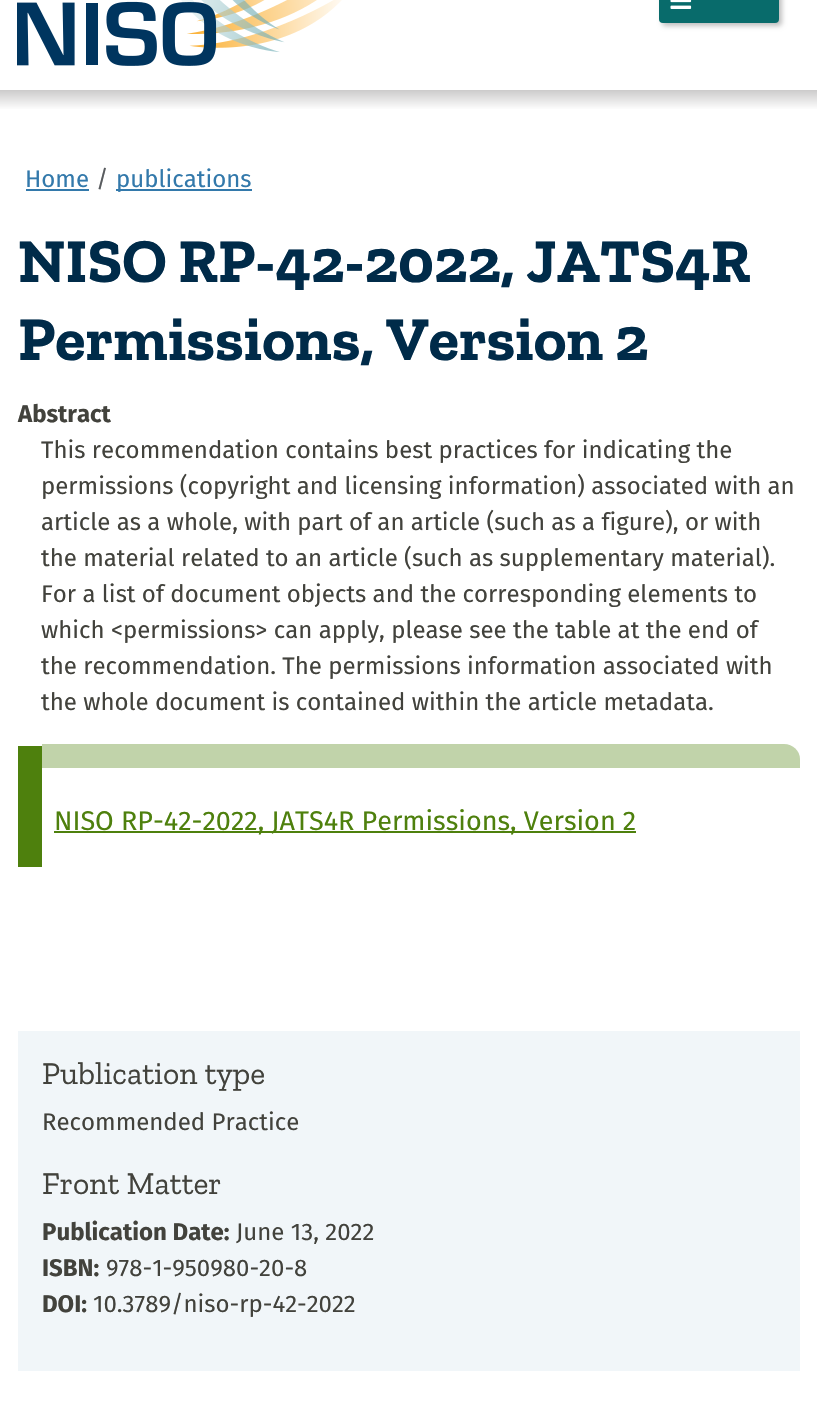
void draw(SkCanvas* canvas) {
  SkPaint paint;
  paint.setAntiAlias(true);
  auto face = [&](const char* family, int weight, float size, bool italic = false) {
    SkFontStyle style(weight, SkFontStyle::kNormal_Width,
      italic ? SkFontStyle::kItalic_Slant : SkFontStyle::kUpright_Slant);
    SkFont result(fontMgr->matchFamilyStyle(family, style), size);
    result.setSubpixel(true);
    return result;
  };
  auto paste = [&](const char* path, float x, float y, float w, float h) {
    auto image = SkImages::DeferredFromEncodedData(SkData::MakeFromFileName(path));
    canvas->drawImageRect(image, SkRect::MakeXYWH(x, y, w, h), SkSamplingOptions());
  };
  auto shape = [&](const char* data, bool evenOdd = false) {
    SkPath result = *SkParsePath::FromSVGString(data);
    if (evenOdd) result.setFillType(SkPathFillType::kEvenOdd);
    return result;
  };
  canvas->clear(0xffffffff);
  paste("img/1.png", 17, 0, 325, 66);
  paint.setColor(0x40000000);
  paint.setMaskFilter(SkMaskFilter::MakeBlur(kNormal_SkBlurStyle, 2.5f));
  canvas->drawRoundRect(SkRect::MakeXYWH(662, -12, 120, 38), 4, 4, paint);
  paint.setMaskFilter(nullptr);
  paint.setColor(0xff086b6b);
  canvas->drawRoundRect(SkRect::MakeXYWH(659, -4, 120, 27), 4, 4, paint);
  paste("img/2.png", 670, 0, 22, 9);
  {
    const SkColor colors[] = {0xffcccbcb, 0xffffffff};
    const float stops[] = {0, 1};
    const SkPoint ends[] = {{409, 90}, {409, 110}};
    paint.setShader(SkGradientShader::MakeLinear(ends, colors, stops, 2, SkTileMode::kClamp));
    paint.setAlpha(255);
  }
  canvas->drawRect(SkRect::MakeXYWH(0, 90, 817, 19), paint);
  paint.setShader(nullptr);
  {
    const struct { float x, y, w, h; SkColor color; } items[] = {
      {26, 189, 63, 2, 0xff3379ab},
      {116, 189, 136, 2, 0xff3379ab},
      {18, 746, 24, 121, 0xff4e800d},
    };
    for (auto [x, y, w, h, color] : items) {
      paint.setColor(color);
      canvas->drawRect(SkRect::MakeXYWH(x, y, w, h), paint);
    }
  }
  paint.setColor(0xffc1d3aa);
  canvas->drawPath(shape("M42 744V768H800V759C800 751 793 744 784 744Z"), paint);
  paint.setColor(0xff4e800d);
  canvas->drawRect(SkRect::MakeXYWH(54, 831, 582, 2), paint);
  paint.setColor(0xfff1f6f9);
  canvas->drawRect(SkRect::MakeXYWH(18, 1031, 782, 340), paint);
  auto f0 = face("Fira Sans", 400, 24);
  paint.setColor(0xff3379ab);
  canvas->drawString("Home", 25, 187, f0, paint);
  paint.setColor(0xff595c5f);
  canvas->drawString("/", 96, 187, f0, paint);
  paint.setColor(0xff3379ab);
  canvas->drawString("publications", 116, 187, f0, paint);
  auto f1 = face("Zilla Slab", 700, 62.4f);
  paint.setColor(0xff002b49);
  canvas->drawString("NISO RP-42-2022, JATS4R", 18, 282, f1, paint);
  canvas->drawString("Permissions, Version 2", 18, 360, f1, paint);
  auto f2 = face("Fira Sans", 700, 24);
  paint.setColor(0xff42423c);
  canvas->drawString("Abstract", 18, 422, f2, paint);
  {
    const struct { const char* s; float x, y; } items[] = {
      {"This recommendation contains best practices for indicating the", 41, 458},
      {"permissions (copyright and licensing information) associated with an", 41, 494},
      {"article as a whole, with part of an article (such as a figure), or with", 41, 530},
      {"the material related to an article (such as supplementary material).", 41, 566},
      {"For a list of document objects and the corresponding elements to", 41, 602},
      {"which <permissions> can apply, please see the table at the end of", 41, 638},
      {"the recommendation. The permissions information associated with", 41, 674},
      {"the whole document is contained within the article metadata.", 41, 710},
    };
    for (auto [s, x, y] : items) {
      canvas->drawString(s, x, y, f0, paint);
    }
  }
  auto f3 = face("Fira Sans", 400, 27);
  paint.setColor(0xff4e800d);
  canvas->drawString("NISO RP-42-2022, JATS4R Permissions, Version 2", 54, 830, f3, paint);
  auto f4 = face("Zilla Slab", 400, 31.75f);
  paint.setColor(0xff42423c);
  canvas->drawString("Publication type", 42, 1084, f4, paint);
  canvas->drawString("Recommended Practice", 42, 1130, f0, paint);
  canvas->drawString("Front Matter", 42, 1194, f4, paint);
  canvas->drawString("Publication Date:", 42, 1240, f2, paint);
  canvas->drawString("June 13, 2022", 236, 1240, f0, paint);
  canvas->drawString("ISBN:", 42, 1276, f2, paint);
  canvas->drawString("978-1-950980-20-8", 106, 1276, f0, paint);
  canvas->drawString("DOI:", 42, 1312, f2, paint);
  canvas->drawString("10.3789/niso-rp-42-2022", 93, 1312, f0, paint);
}
